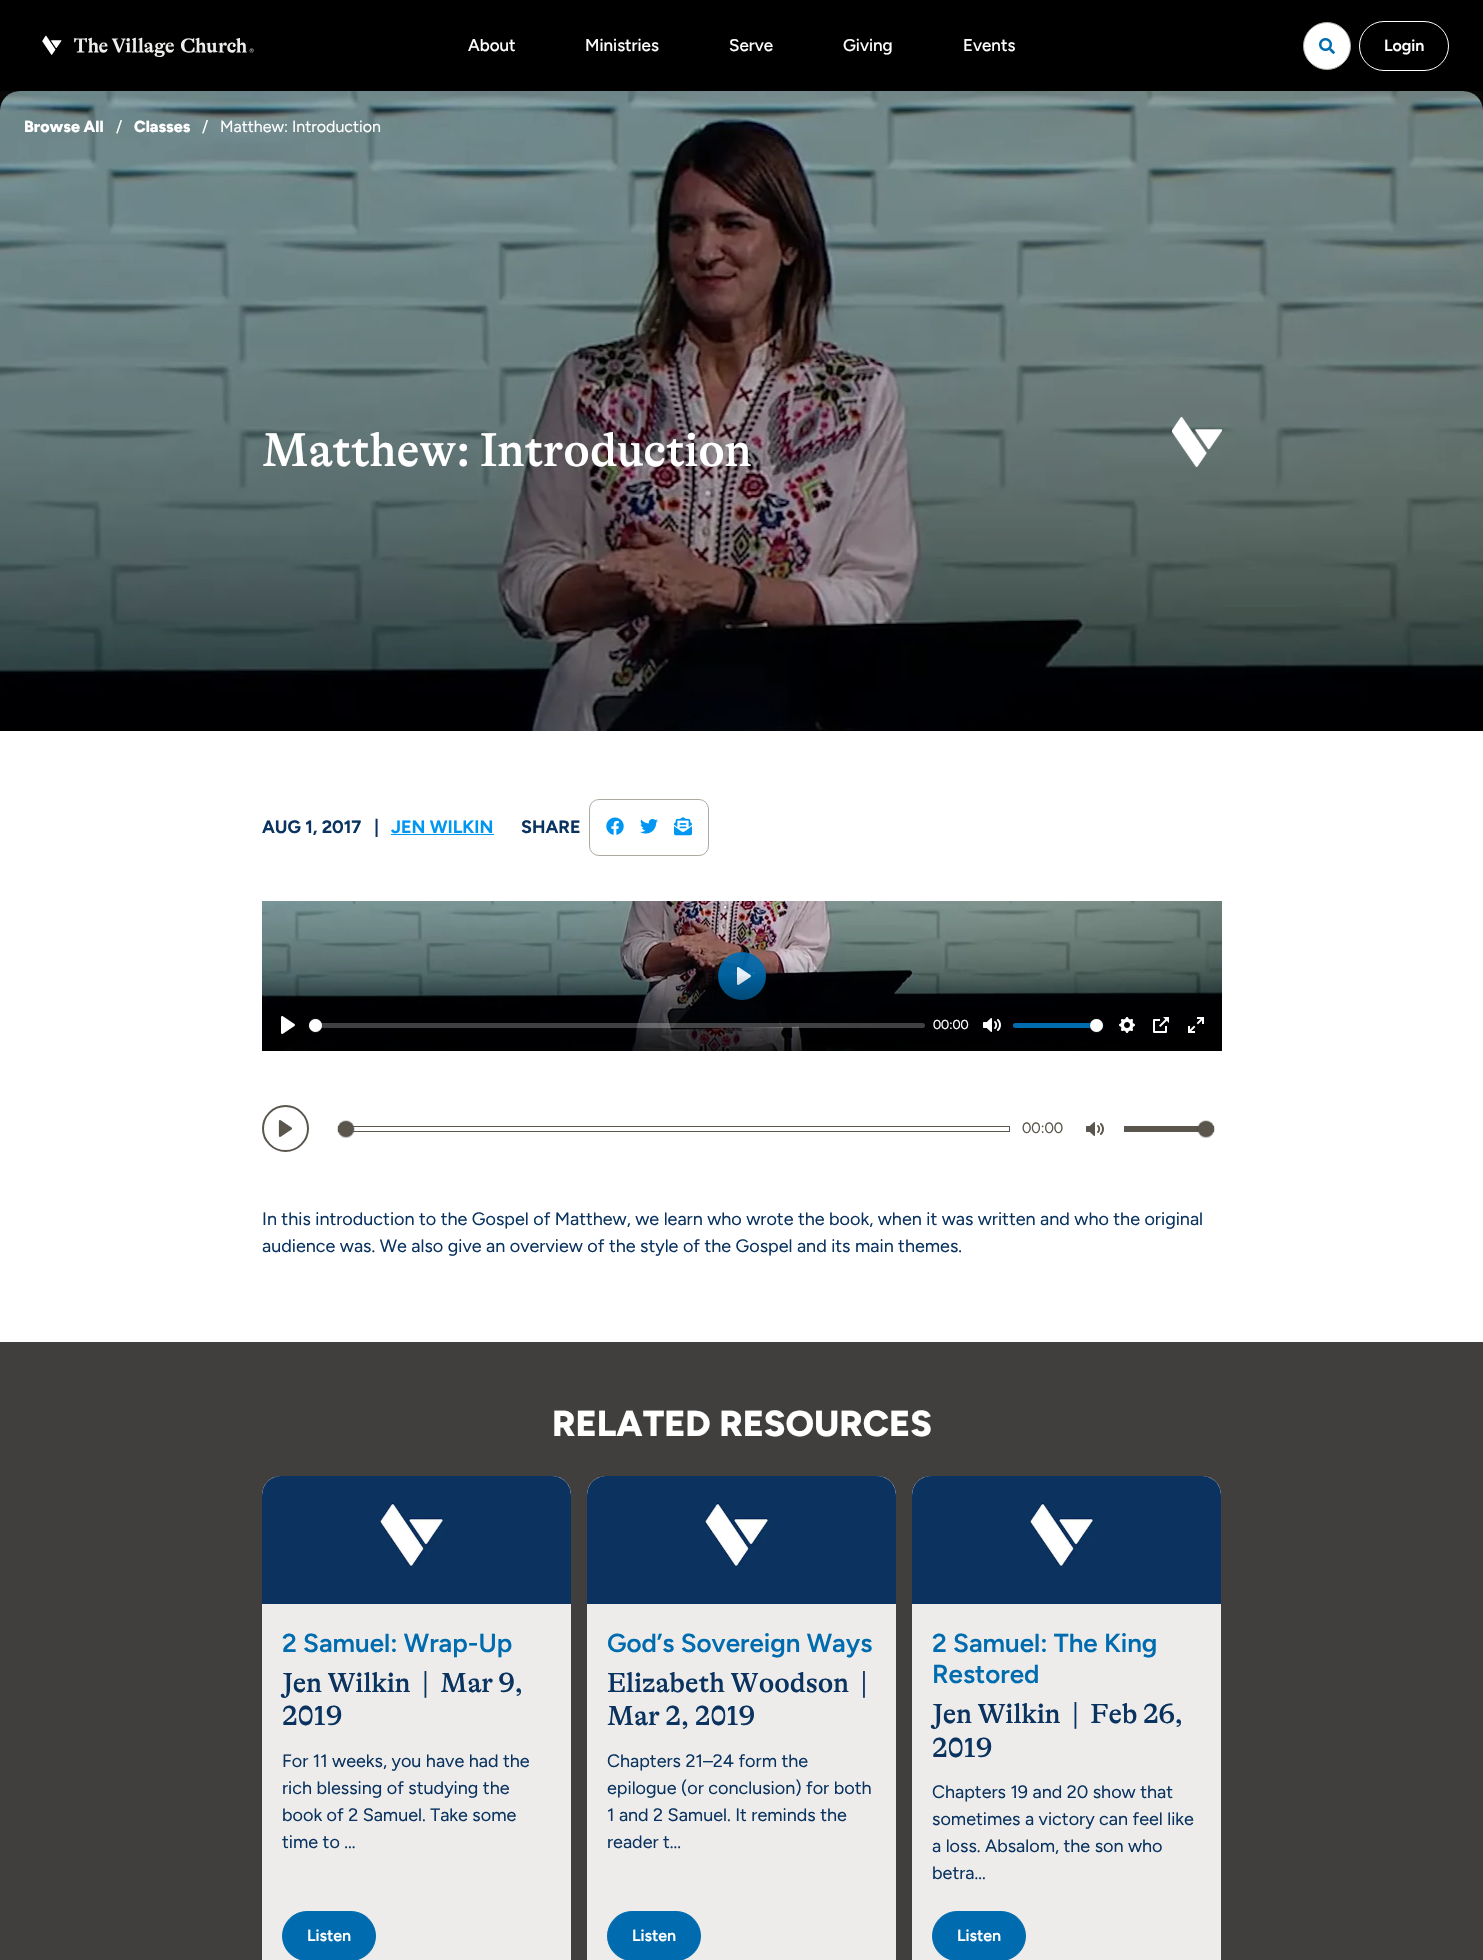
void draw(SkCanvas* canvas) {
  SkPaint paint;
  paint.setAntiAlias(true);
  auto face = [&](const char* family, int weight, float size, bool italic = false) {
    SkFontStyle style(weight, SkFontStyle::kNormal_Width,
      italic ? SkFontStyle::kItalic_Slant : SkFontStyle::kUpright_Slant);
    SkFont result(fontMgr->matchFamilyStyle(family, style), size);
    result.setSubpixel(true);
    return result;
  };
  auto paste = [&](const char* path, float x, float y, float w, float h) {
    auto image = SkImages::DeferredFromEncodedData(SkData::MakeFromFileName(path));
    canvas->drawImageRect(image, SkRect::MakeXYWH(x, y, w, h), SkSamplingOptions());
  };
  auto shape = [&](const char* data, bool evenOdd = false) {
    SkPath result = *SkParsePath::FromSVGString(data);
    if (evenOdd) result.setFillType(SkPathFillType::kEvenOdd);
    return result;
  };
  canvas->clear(0xffffffff);
  paint.setColor(0xff000000);
  canvas->drawRect(SkRect::MakeXYWH(0, 0, 1483, 91), paint);
  paste("img/1.png", 42, 35, 212, 22);
  paint.setColor(0xffffffff);
  canvas->drawCircle(1327, 46, 23.5f, paint);
  paint.setStroke(true);
  paint.setStrokeWidth(1);
  paint.setColor(0xffafaaa1);
  canvas->drawCircle(1327, 46, 23.5f, paint);
  paste("img/2.png", 1319, 38, 16, 16);
  paint.setColor(0xffffffff);
  canvas->drawRoundRect(SkRect::MakeXYWH(1359.5f, 21.5f, 89, 49), 24.5f, 24.5f, paint);
  paint.setStroke(false);
  paint.setColor(0xff090908);
  canvas->drawRect(SkRect::MakeXYWH(0, 91, 1483, 20), paint);
  paint.setColor(0xff000000);
  canvas->drawPath(shape("M20 91H1463C1474 91 1483 100 1483 111V731H0V111C0 100 9 91 20 91Z"), paint);
  paste("img/3.png", 0, 91, 1483, 640);
  paste("img/4.png", 1172, 417, 50, 50);
  paint.setColor(0xff0096f2);
  canvas->drawRect(SkRect::MakeXYWH(391, 834, 103, 1), paint);
  paint.setStroke(true);
  paint.setColor(0xffafaaa1);
  canvas->drawRoundRect(SkRect::MakeXYWH(589.5f, 799.5f, 119, 56), 9.5f, 9.5f, paint);
  paste("img/5.png", 606, 817, 18, 18);
  paste("img/6.png", 640, 818, 18, 16);
  paste("img/7.png", 674, 817, 18, 19);
  paste("img/8.png", 262, 901, 960, 150);
  paint.setStroke(false);
  paint.setColor(0xe6006caf);
  canvas->drawCircle(742, 976, 24, paint);
  paste("img/9.png", 737, 967, 14, 18);
  {
    const SkColor colors[] = {0x00000000, 0xbf000000};
    const float stops[] = {0, 1};
    const SkPoint ends[] = {{742, 974}, {742, 1051}};
    paint.setShader(SkGradientShader::MakeLinear(ends, colors, stops, 2, SkTileMode::kClamp));
    paint.setAlpha(255);
  }
  canvas->drawRect(SkRect::MakeXYWH(262, 976, 960, 75), paint);
  paste("img/10.png", 281, 1016, 14, 18);
  paint.setShader(nullptr);
  paint.setColor(0x40ffffff);
  canvas->drawRoundRect(SkRect::MakeXYWH(309, 1023, 616, 5), 2.5f, 2.5f, paint);
  paint.setStroke(true);
  paint.setColor(0x3323282f);
  canvas->drawCircle(315.5f, 1025.5f, 7, paint);
  paint.setStroke(false);
  paint.setColor(0x2623282f);
  paint.setMaskFilter(SkMaskFilter::MakeBlur(kNormal_SkBlurStyle, 0.5f));
  canvas->drawRoundRect(SkRect::MakeXYWH(309, 1020, 13, 13), 6.5f, 6.5f, paint);
  paint.setMaskFilter(nullptr);
  paint.setColor(0xffffffff);
  canvas->drawCircle(315.5f, 1025.5f, 6.5f, paint);
  paste("img/11.png", 983, 1018, 18, 14);
  paint.setColor(0xff006caf);
  canvas->drawRoundRect(SkRect::MakeXYWH(1013, 1023, 90, 5), 2.5f, 2.5f, paint);
  paint.setStroke(true);
  paint.setColor(0x3323282f);
  canvas->drawCircle(1096.5f, 1025.5f, 7, paint);
  paint.setStroke(false);
  paint.setColor(0x2623282f);
  paint.setMaskFilter(SkMaskFilter::MakeBlur(kNormal_SkBlurStyle, 0.5f));
  canvas->drawRoundRect(SkRect::MakeXYWH(1090, 1020, 13, 13), 6.5f, 6.5f, paint);
  paint.setMaskFilter(nullptr);
  paint.setColor(0xffffffff);
  canvas->drawCircle(1096.5f, 1025.5f, 6.5f, paint);
  paste("img/12.png", 1119, 1017, 16, 16);
  paste("img/13.png", 1153, 1017, 16, 16);
  paste("img/14.png", 1188, 1017, 16, 16);
  paint.setStroke(true);
  paint.setStrokeWidth(2);
  paint.setColor(0xff5a564d);
  canvas->drawCircle(285.5f, 1128.5f, 22.5f, paint);
  paste("img/15.png", 278, 1120, 15, 17);
  paint.setStrokeWidth(1);
  canvas->drawRect(SkRect::MakeXYWH(338.5f, 1126.5f, 671, 5), paint);
  paint.setColor(0x3323282f);
  canvas->drawCircle(346, 1129, 8.5f, paint);
  paint.setStroke(false);
  paint.setColor(0x2623282f);
  paint.setMaskFilter(SkMaskFilter::MakeBlur(kNormal_SkBlurStyle, 0.5f));
  canvas->drawRoundRect(SkRect::MakeXYWH(338, 1122, 16, 16), 8, 8, paint);
  paint.setMaskFilter(nullptr);
  paint.setColor(0xff5a564d);
  canvas->drawCircle(346, 1129, 8, paint);
  paste("img/16.png", 1086, 1122, 18, 14);
  canvas->drawRect(SkRect::MakeXYWH(1124, 1127, 75, 4), paint);
  paint.setStroke(true);
  paint.setColor(0x3323282f);
  canvas->drawCircle(1206, 1129, 8.5f, paint);
  paint.setStroke(false);
  paint.setColor(0x2623282f);
  paint.setMaskFilter(SkMaskFilter::MakeBlur(kNormal_SkBlurStyle, 0.5f));
  canvas->drawRoundRect(SkRect::MakeXYWH(1198, 1122, 16, 16), 8, 8, paint);
  paint.setMaskFilter(nullptr);
  paint.setColor(0xff5a564d);
  canvas->drawCircle(1206, 1129, 8, paint);
  paint.setStroke(true);
  canvas->drawRect(SkRect::MakeXYWH(1124.5f, 1126.5f, 89, 5), paint);
  paint.setStroke(false);
  paint.setColor(0xff403f3d);
  canvas->drawRect(SkRect::MakeXYWH(0, 1342, 1483, 618), paint);
  paint.setColor(0xffedecea);
  canvas->drawRoundRect(SkRect::MakeXYWH(262, 1476, 309, 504), 20, 20, paint);
  paint.setColor(0xfff8f8fc);
  canvas->drawPath(shape("M281 1476H552C562.5 1476 571 1484.5 571 1495V1604H262V1495C262 1484.5 270.5 1476 281 1476Z"), paint);
  paste("img/17.png", 262, 1476, 309, 128);
  paint.setColor(0xff006caf);
  canvas->drawRoundRect(SkRect::MakeXYWH(282.5f, 1911.5f, 93, 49), 24.5f, 24.5f, paint);
  paint.setStroke(true);
  canvas->drawRoundRect(SkRect::MakeXYWH(282.5f, 1911.5f, 93, 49), 24.5f, 24.5f, paint);
  paint.setStroke(false);
  paint.setColor(0xffedecea);
  canvas->drawRoundRect(SkRect::MakeXYWH(587, 1476, 309, 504), 20, 20, paint);
  paint.setColor(0xfff8f8fc);
  canvas->drawPath(shape("M606 1476H877C887.5 1476 896 1484.5 896 1495V1604H587V1495C587 1484.5 595.5 1476 606 1476Z"), paint);
  paste("img/17.png", 587, 1476, 309, 128);
  paint.setColor(0xff006caf);
  canvas->drawRoundRect(SkRect::MakeXYWH(607.5f, 1911.5f, 93, 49), 24.5f, 24.5f, paint);
  paint.setStroke(true);
  canvas->drawRoundRect(SkRect::MakeXYWH(607.5f, 1911.5f, 93, 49), 24.5f, 24.5f, paint);
  paint.setStroke(false);
  paint.setColor(0xffedecea);
  canvas->drawRoundRect(SkRect::MakeXYWH(912, 1476, 309, 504), 20, 20, paint);
  paint.setColor(0xfff8f8fc);
  canvas->drawPath(shape("M931 1476H1202C1212.5 1476 1221 1484.5 1221 1495V1604H912V1495C912 1484.5 920.5 1476 931 1476Z"), paint);
  paste("img/17.png", 912, 1476, 309, 128);
  paint.setColor(0xff006caf);
  canvas->drawRoundRect(SkRect::MakeXYWH(932.5f, 1911.5f, 93, 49), 24.5f, 24.5f, paint);
  paint.setStroke(true);
  canvas->drawRoundRect(SkRect::MakeXYWH(932.5f, 1911.5f, 93, 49), 24.5f, 24.5f, paint);
  auto f0 = face("Figtree", 500, 17);
  paint.setStroke(false);
  paint.setColor(0xffffffff);
  {
    const struct { const char* s; float x, y; } items[] = {
      {"About", 468, 51},
      {"Ministries", 585, 51},
      {"Serve", 729, 51},
      {"Giving", 843, 51},
      {"Events", 963, 51},
    };
    for (auto [s, x, y] : items) {
      canvas->drawString(s, x, y, f0, paint);
    }
  }
  auto f1 = face("Figtree", 600, 16);
  canvas->drawString("Login", 1384, 51, f1, paint);
  auto f2 = face("Figtree", 800, 16);
  canvas->drawString("Browse All", 24, 132, f2, paint);
  auto f3 = face("Figtree", 400, 16);
  canvas->drawString("/", 116, 132, f3, paint);
  canvas->drawString("Classes", 134, 132, f2, paint);
  canvas->drawString("/", 202, 132, f3, paint);
  canvas->drawString("Matthew: Introduction", 220, 132, f3, paint);
  auto f4 = face("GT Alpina", 500, 48);
  canvas->drawString("Matthew: Introduction", 262, 466, f4, paint);
  auto f5 = face("Figtree", 700, 18);
  paint.setColor(0xff0a3360);
  canvas->drawString("AUG 1, 2017   |", 262, 833, f5, paint);
  paint.setColor(0xff0096f2);
  canvas->drawString("JEN WILKIN", 391, 833, f5, paint);
  paint.setColor(0xff0a3360);
  canvas->drawString("SHARE", 521, 833, f5, paint);
  auto f6 = face("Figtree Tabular", 400, 13);
  paint.setColor(0xffffffff);
  canvas->drawString("00:00", 933, 1029, f6, paint);
  auto f7 = face("Figtree Tabular", 400, 15);
  paint.setColor(0xff5a564d);
  canvas->drawString("00:00", 1022, 1133, f7, paint);
  auto f8 = face("Figtree", 400, 18);
  paint.setColor(0xff0a3360);
  canvas->drawString("In this introduction to the Gospel of Matthew, we learn who wrote the book, when it was written and who the original", 262, 1225, f8, paint);
  canvas->drawString("audience was. We also give an overview of the style of the Gospel and its main themes.", 262, 1252, f8, paint);
  auto f9 = face("Figtree", 800, 36);
  paint.setColor(0xffffffff);
  canvas->drawString("RELATED RESOURCES", 552, 1436, f9, paint);
  auto f10 = face("Figtree", 600, 26);
  paint.setColor(0xff006caf);
  canvas->drawString("2 Samuel: Wrap-Up", 282, 1652, f10, paint);
  auto f11 = face("GT Alpina", 500, 28);
  paint.setColor(0xff0a3360);
  canvas->drawString("Jen Wilkin  |  Mar 9,", 282, 1692, f11, paint);
  canvas->drawString("2019", 282, 1725, f11, paint);
  {
    const struct { const char* s; float x, y; } items[] = {
      {"For 11 weeks, you have had the", 282, 1767},
      {"rich blessing of studying the", 282, 1794},
      {"book of 2 Samuel. Take some", 282, 1821},
      {"time to ...", 282, 1848},
    };
    for (auto [s, x, y] : items) {
      canvas->drawString(s, x, y, f8, paint);
    }
  }
  paint.setColor(0xffffffff);
  canvas->drawString("Listen", 307, 1941, f1, paint);
  paint.setColor(0xff006caf);
  canvas->drawString("God’s Sovereign Ways", 607, 1652, f10, paint);
  paint.setColor(0xff0a3360);
  canvas->drawString("Elizabeth Woodson  |", 607, 1692, f11, paint);
  canvas->drawString("Mar 2, 2019", 607, 1725, f11, paint);
  {
    const struct { const char* s; float x, y; } items[] = {
      {"Chapters 21–24 form the", 607, 1767},
      {"epilogue (or conclusion) for both", 607, 1794},
      {"1 and 2 Samuel. It reminds the", 607, 1821},
      {"reader t...", 607, 1848},
    };
    for (auto [s, x, y] : items) {
      canvas->drawString(s, x, y, f8, paint);
    }
  }
  paint.setColor(0xffffffff);
  canvas->drawString("Listen", 632, 1941, f1, paint);
  paint.setColor(0xff006caf);
  canvas->drawString("2 Samuel: The King", 932, 1652, f10, paint);
  canvas->drawString("Restored", 932, 1683, f10, paint);
  paint.setColor(0xff0a3360);
  canvas->drawString("Jen Wilkin  |  Feb 26,", 932, 1723, f11, paint);
  canvas->drawString("2019", 932, 1757, f11, paint);
  {
    const struct { const char* s; float x, y; } items[] = {
      {"Chapters 19 and 20 show that", 932, 1798},
      {"sometimes a victory can feel like", 932, 1825},
      {"a loss. Absalom, the son who", 932, 1852},
      {"betra...", 932, 1879},
    };
    for (auto [s, x, y] : items) {
      canvas->drawString(s, x, y, f8, paint);
    }
  }
  paint.setColor(0xffffffff);
  canvas->drawString("Listen", 957, 1941, f1, paint);
}
